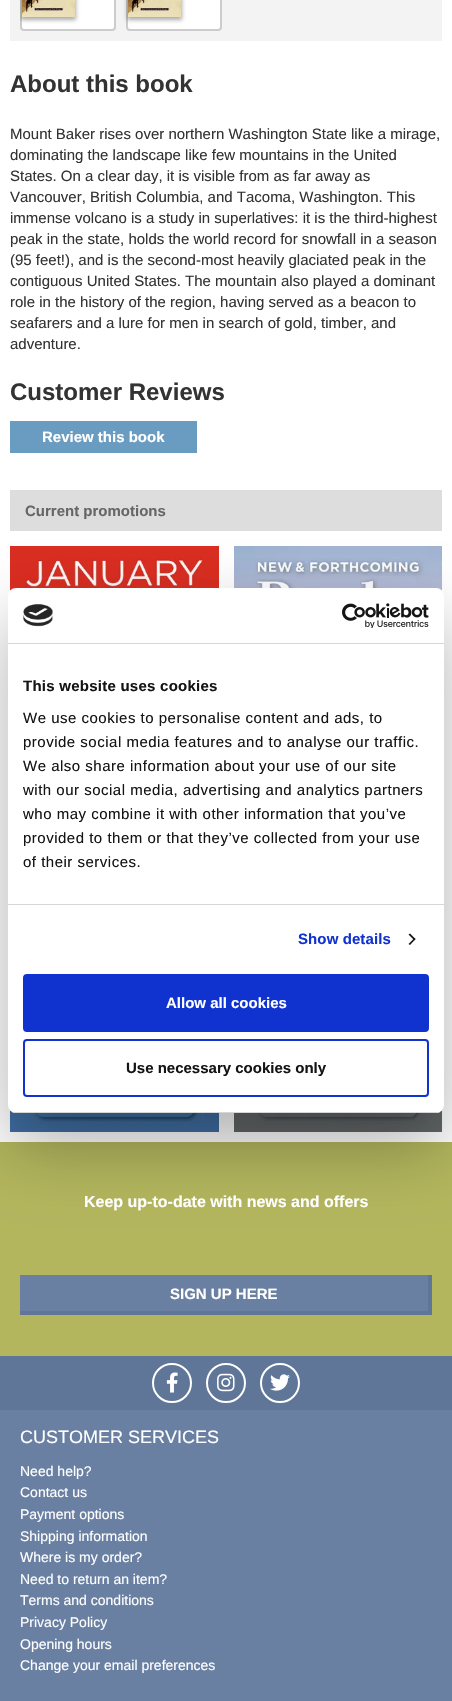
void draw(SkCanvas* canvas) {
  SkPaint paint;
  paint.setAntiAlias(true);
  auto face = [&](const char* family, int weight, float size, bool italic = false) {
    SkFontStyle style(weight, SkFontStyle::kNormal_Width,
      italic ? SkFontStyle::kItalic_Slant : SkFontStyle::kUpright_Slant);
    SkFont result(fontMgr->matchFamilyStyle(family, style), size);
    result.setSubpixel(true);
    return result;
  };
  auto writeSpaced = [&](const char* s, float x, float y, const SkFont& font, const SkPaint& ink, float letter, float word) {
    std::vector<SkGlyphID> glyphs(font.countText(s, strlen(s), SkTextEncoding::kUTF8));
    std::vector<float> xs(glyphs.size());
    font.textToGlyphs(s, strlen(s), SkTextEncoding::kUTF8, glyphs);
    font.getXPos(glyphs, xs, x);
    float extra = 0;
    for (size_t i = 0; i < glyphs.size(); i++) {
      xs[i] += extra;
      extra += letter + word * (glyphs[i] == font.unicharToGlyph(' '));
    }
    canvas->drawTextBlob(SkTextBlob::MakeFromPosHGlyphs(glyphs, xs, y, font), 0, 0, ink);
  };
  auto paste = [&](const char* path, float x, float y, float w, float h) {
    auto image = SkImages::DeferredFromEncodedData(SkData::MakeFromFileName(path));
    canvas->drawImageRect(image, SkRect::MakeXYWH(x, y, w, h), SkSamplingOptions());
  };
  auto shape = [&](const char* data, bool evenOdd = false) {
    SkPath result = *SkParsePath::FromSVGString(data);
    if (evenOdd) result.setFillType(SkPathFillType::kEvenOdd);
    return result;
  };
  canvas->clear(0xffffffff);
  paint.setColor(0xfff3f3f3);
  canvas->drawRect(SkRect::MakeXYWH(10, 0, 432, 41), paint);
  paint.setColor(0xffffffff);
  canvas->drawRoundRect(SkRect::MakeXYWH(21, -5, 94, 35), 3, 3, paint);
  paint.setStroke(true);
  paint.setStrokeWidth(2);
  paint.setColor(0xffcccccc);
  canvas->drawRoundRect(SkRect::MakeXYWH(21, -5, 94, 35), 3, 3, paint);
  canvas->save();
  canvas->clipRect(SkRect::MakeXYWH(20, 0, 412, 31));
  paint.setStroke(false);
  paint.setColor(0x52000000);
  paint.setMaskFilter(SkMaskFilter::MakeBlur(kNormal_SkBlurStyle, 2));
  canvas->drawRect(SkRect::MakeXYWH(21, -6, 55, 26), paint);
  paint.setMaskFilter(nullptr);
  canvas->restore();
  paste("img/1.png", 22, 0, 53, 17);
  paint.setColor(0xffffffff);
  canvas->drawRoundRect(SkRect::MakeXYWH(127, -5, 94, 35), 3, 3, paint);
  paint.setStroke(true);
  paint.setColor(0xffcccccc);
  canvas->drawRoundRect(SkRect::MakeXYWH(127, -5, 94, 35), 3, 3, paint);
  paint.setStroke(false);
  paint.setColor(0x52000000);
  paint.setMaskFilter(SkMaskFilter::MakeBlur(kNormal_SkBlurStyle, 2));
  canvas->drawRect(SkRect::MakeXYWH(127, -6, 55, 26), paint);
  paint.setMaskFilter(nullptr);
  paste("img/1.png", 128, 0, 53, 17);
  paint.setColor(0xff6a9cc1);
  canvas->drawRect(SkRect::MakeXYWH(10, 421, 187, 32), paint);
  paint.setColor(0xffdddddd);
  canvas->drawRect(SkRect::MakeXYWH(10, 490, 432, 41), paint);
  paste("img/2.png", 10, 546, 209, 45);
  paste("img/3.png", 234, 546, 208, 45);
  paste("img/4.png", 10, 1110, 209, 22);
  paste("img/5.png", 234, 1110, 208, 22);
  paint.setColor(0xffb3b65d);
  canvas->drawRect(SkRect::MakeXYWH(0, 1142, 452, 214), paint);
  paint.setColor(0x4d000000);
  paint.setMaskFilter(SkMaskFilter::MakeBlur(kNormal_SkBlurStyle, 34));
  canvas->drawRoundRect(SkRect::MakeXYWH(8, 620, 436, 525), 8, 8, paint);
  paint.setMaskFilter(nullptr);
  paint.setColor(0xffffffff);
  canvas->drawRoundRect(SkRect::MakeXYWH(8, 588, 436, 525), 8, 8, paint);
  paint.setColor(0xffd6d6d6);
  canvas->drawRect(SkRect::MakeXYWH(8, 643, 436, 1), paint);
  paste("img/6.png", 23, 604, 30, 23);
  paste("img/7.png", 342, 603, 87, 25);
  canvas->drawRect(SkRect::MakeXYWH(8, 904, 436, 1), paint);
  paint.setColor(0xff141414);
  canvas->drawPath(shape("M410 933.5L415.5 939L414.5 940.5L408.5 934.5Z"), paint);
  canvas->drawPath(shape("M414.5 938L415.5 939L410 945L408.5 944Z"), paint);
  canvas->save();
  canvas->clipPath(shape("M16 588H436C440.5 588 444 591.5 444 596V1105C444 1109.5 440.5 1113 436 1113H16C11.5 1113 8 1109.5 8 1105V596C8 591.5 11.5 588 16 588Z"), true);
  paint.setColor(0xffd6d6d6);
  canvas->drawRect(SkRect::MakeXYWH(8, 1112, 436, 1), paint);
  canvas->restore();
  paint.setColor(0xff1032cf);
  canvas->drawRoundRect(SkRect::MakeXYWH(24, 975, 404, 56), 3, 3, paint);
  paint.setStroke(true);
  canvas->drawRoundRect(SkRect::MakeXYWH(24, 975, 404, 56), 3, 3, paint);
  canvas->drawRoundRect(SkRect::MakeXYWH(24, 1040, 404, 56), 3, 3, paint);
  paint.setStroke(false);
  {
    const struct { float x, y, w, h; SkColor color; } items[] = {
      {20, 1275, 408, 36, 0xff6a80a2},
      {428, 1275, 4, 40, 0xff5f7698},
      {20, 1311, 412, 4, 0xff5f7698},
      {0, 1356, 452, 54, 0xff5f7698},
    };
    for (auto [x, y, w, h, color] : items) {
      paint.setColor(color);
      canvas->drawRect(SkRect::MakeXYWH(x, y, w, h), paint);
    }
  }
  paint.setStroke(true);
  paint.setColor(0xffffffff);
  canvas->drawCircle(172, 1383, 19, paint);
  paste("img/8.png", 166, 1372, 12, 21);
  canvas->drawCircle(226, 1383, 19, paint);
  paste("img/9.png", 217, 1373, 18, 19);
  canvas->drawCircle(280, 1383, 19, paint);
  paste("img/10.png", 270, 1374, 20, 17);
  paint.setStroke(false);
  paint.setColor(0xff6a80a2);
  canvas->drawRect(SkRect::MakeXYWH(0, 1410, 452, 291), paint);
  auto f0 = face("Liberation Sans", 700, 24);
  paint.setColor(0xff333333);
  canvas->drawString("About this book", 10, 92, f0, paint);
  auto f1 = face("Liberation Sans", 400, 15);
  {
    const struct { const char* s; float x, y; } items[] = {
      {"Mount Baker rises over northern Washington State like a mirage,", 10, 139},
      {"dominating the landscape like few mountains in the United", 10, 160},
      {"States. On a clear day, it is visible from as far away as", 10, 181},
      {"Vancouver, British Columbia, and Tacoma, Washington. This", 10, 202},
      {"immense volcano is a study in superlatives: it is the third-highest", 10, 223},
      {"peak in the state, holds the world record for snowfall in a season", 10, 244},
      {"(95 feet!), and is the second-most heavily glaciated peak in the", 10, 265},
      {"contiguous United States. The mountain also played a dominant", 10, 286},
      {"role in the history of the region, having served as a beacon to", 10, 307},
      {"seafarers and a lure for men in search of gold, timber, and", 10, 328},
      {"adventure.", 10, 349},
    };
    for (auto [s, x, y] : items) {
      canvas->drawString(s, x, y, f1, paint);
    }
  }
  canvas->drawString("Customer Reviews", 10, 400, f0, paint);
  auto f2 = face("Liberation Sans", 700, 15);
  paint.setColor(0xffffffff);
  canvas->drawString("Review this book", 42, 442, f2, paint);
  paint.setColor(0xff666666);
  canvas->drawString("Current promotions", 25, 516, f2, paint);
  paint.setColor(0xff141414);
  writeSpaced("This website uses cookies", 23, 691, f2, paint, 0.25f, 0);
  {
    const struct { const char* s; float x, y; } items[] = {
      {"We use cookies to personalise content and ads, to", 23, 723},
      {"provide social media features and to analyse our traffic.", 23, 747},
      {"We also share information about your use of our site", 23, 771},
      {"with our social media, advertising and analytics partners", 23, 795},
      {"who may combine it with other information that you’ve", 23, 819},
      {"provided to them or that they’ve collected from your use", 23, 843},
      {"of their services.", 23, 867},
    };
    for (auto [s, x, y] : items) {
      writeSpaced(s, x, y, f1, paint, 0.5f, 0);
    }
  }
  paint.setColor(0xff1032cf);
  writeSpaced("Show details", 298, 944, f2, paint, 0.1f, 0);
  paint.setColor(0xffffffff);
  canvas->drawString("Allow all cookies", 166, 1008, f2, paint);
  paint.setColor(0xff141414);
  canvas->drawString("Use necessary cookies only", 126, 1073, f2, paint);
  auto f3 = face("Liberation Sans", 700, 16);
  paint.setColor(0xffffffff);
  canvas->drawString("Keep up-to-date with news and offers", 84, 1207, f3, paint);
  canvas->drawString("SIGN UP HERE", 170, 1299, f2, paint);
  auto f4 = face("Liberation Sans", 400, 18);
  canvas->drawString("CUSTOMER SERVICES", 20, 1443, f4, paint);
  auto f5 = face("Liberation Sans", 400, 14);
  {
    const struct { const char* s; float x, y; } items[] = {
      {"Need help?", 20, 1476},
      {"Contact us", 20, 1497},
      {"Payment options", 20, 1519},
      {"Shipping information", 20, 1541},
      {"Where is my order?", 20, 1562},
      {"Need to return an item?", 20, 1584},
      {"Terms and conditions", 20, 1605},
      {"Privacy Policy", 20, 1627},
      {"Opening hours", 20, 1649},
      {"Change your email preferences", 20, 1670},
    };
    for (auto [s, x, y] : items) {
      canvas->drawString(s, x, y, f5, paint);
    }
  }
}
